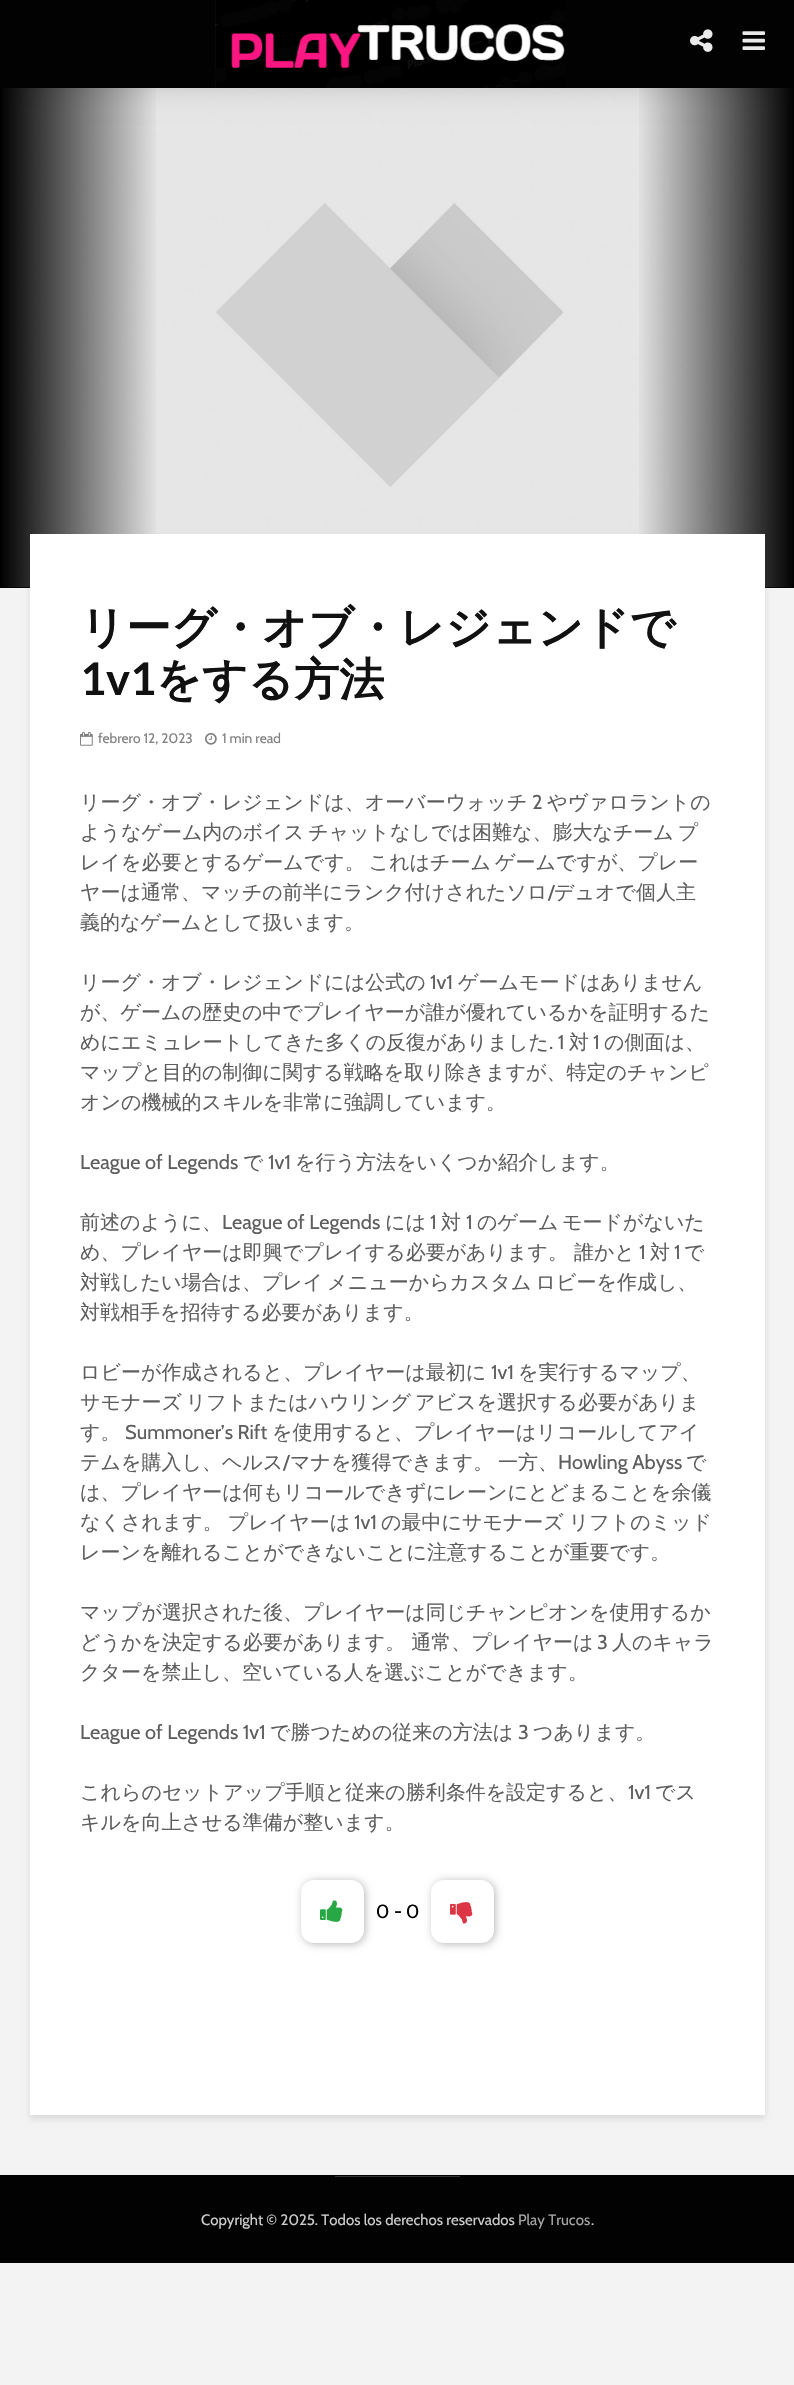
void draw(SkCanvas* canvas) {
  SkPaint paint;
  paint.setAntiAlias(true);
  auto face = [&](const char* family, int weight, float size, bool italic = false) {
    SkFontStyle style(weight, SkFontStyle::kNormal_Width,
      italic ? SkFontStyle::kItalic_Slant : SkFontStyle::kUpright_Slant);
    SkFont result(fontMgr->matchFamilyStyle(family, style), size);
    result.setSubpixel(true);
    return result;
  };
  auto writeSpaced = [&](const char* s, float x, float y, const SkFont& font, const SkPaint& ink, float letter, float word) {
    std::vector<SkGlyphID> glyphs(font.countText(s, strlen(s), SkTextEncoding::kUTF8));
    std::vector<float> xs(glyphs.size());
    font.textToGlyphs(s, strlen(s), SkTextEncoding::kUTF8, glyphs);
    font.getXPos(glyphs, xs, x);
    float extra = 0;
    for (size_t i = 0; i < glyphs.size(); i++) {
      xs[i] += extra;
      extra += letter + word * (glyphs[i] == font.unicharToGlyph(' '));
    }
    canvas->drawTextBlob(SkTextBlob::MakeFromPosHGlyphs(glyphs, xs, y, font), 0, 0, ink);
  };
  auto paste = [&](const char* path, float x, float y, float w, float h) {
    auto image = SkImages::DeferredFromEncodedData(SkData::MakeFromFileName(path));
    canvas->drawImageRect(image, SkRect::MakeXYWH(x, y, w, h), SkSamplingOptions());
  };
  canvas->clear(0xfff3f3f3);
  paint.setColor(0xff000000);
  canvas->drawRect(SkRect::MakeXYWH(1, 587, 793, 1), paint);
  paste("img/4.png", 1, 88, 793, 500);
  {
    const SkColor colors[] = {0xff000000, 0x00000000};
    const float stops[] = {0, 1};
    const SkPoint ends[] = {{0, 338}, {159, 338}};
    paint.setShader(SkGradientShader::MakeLinear(ends, colors, stops, 2, SkTileMode::kClamp));
    paint.setAlpha(255);
  }
  canvas->drawRect(SkRect::MakeXYWH(0, 88, 156, 500), paint);
  {
    const SkColor colors[] = {0x00000000, 0xff000000};
    const float stops[] = {0, 1};
    const SkPoint ends[] = {{636, 338}, {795, 338}};
    paint.setShader(SkGradientShader::MakeLinear(ends, colors, stops, 2, SkTileMode::kClamp));
    paint.setAlpha(255);
  }
  canvas->drawRect(SkRect::MakeXYWH(639, 88, 155, 500), paint);
  paint.setShader(nullptr);
  paint.setColor(0x26000000);
  paint.setMaskFilter(SkMaskFilter::MakeBlur(kNormal_SkBlurStyle, 12.5f));
  canvas->drawRect(SkRect::MakeXYWH(0, 0, 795, 88), paint);
  paint.setMaskFilter(nullptr);
  paint.setColor(0xff020202);
  canvas->drawRect(SkRect::MakeXYWH(0, 0, 794, 88), paint);
  paste("img/1.png", 215, 0, 350, 88);
  paste("img/2.png", 690, 29, 23, 23);
  paste("img/3.png", 742, 31, 23, 19);
  paint.setColor(0x1a000101);
  paint.setMaskFilter(SkMaskFilter::MakeBlur(kNormal_SkBlurStyle, 3));
  canvas->drawRect(SkRect::MakeXYWH(30, 538, 735, 1581), paint);
  paint.setMaskFilter(nullptr);
  paint.setColor(0xffffffff);
  canvas->drawRect(SkRect::MakeXYWH(30, 534, 735, 1581), paint);
  paste("img/5.png", 80, 731, 13, 15);
  paste("img/6.png", 205, 733, 12, 12);
  paint.setColor(0xffb3b3b3);
  paint.setMaskFilter(SkMaskFilter::MakeBlur(kNormal_SkBlurStyle, 4));
  canvas->drawRoundRect(SkRect::MakeXYWH(303, 1881, 62, 63), 13, 13, paint);
  paint.setMaskFilter(nullptr);
  paint.setColor(0xffffffff);
  canvas->drawRoundRect(SkRect::MakeXYWH(301, 1880, 63, 63), 13, 13, paint);
  paste("img/7.png", 320, 1900, 23, 22);
  paint.setColor(0xffb3b3b3);
  paint.setMaskFilter(SkMaskFilter::MakeBlur(kNormal_SkBlurStyle, 4));
  canvas->drawRoundRect(SkRect::MakeXYWH(433, 1881, 62, 63), 13, 13, paint);
  paint.setMaskFilter(nullptr);
  paint.setColor(0xffffffff);
  canvas->drawRoundRect(SkRect::MakeXYWH(431, 1880, 63, 63), 13, 13, paint);
  paste("img/8.png", 450, 1902, 23, 22);
  paint.setColor(0xff020202);
  canvas->drawRect(SkRect::MakeXYWH(0, 2175, 794, 88), paint);
  paint.setColor(0xff353535);
  canvas->drawRect(SkRect::MakeXYWH(335, 2176, 125, 1), paint);
  auto f0 = face("WenQuanYi Zen Hei", 700, 45);
  paint.setColor(0xff111111);
  canvas->drawString("リーグ・オブ・レジェンドで", 80, 643, f0, paint);
  auto f1 = face("Lato", 700, 45);
  canvas->drawString("1v1", 80, 695, f1, paint);
  canvas->drawString("をする方法", 156, 695, f0, paint);
  auto f2 = face("Cabin", 400, 13.75f);
  paint.setColor(0xff818181);
  canvas->drawString("febrero 12, 2023", 98, 743, f2, paint);
  canvas->drawString("1 min read", 222, 743, f2, paint);
  auto f3 = face("WenQuanYi Zen Hei", 500, 20);
  paint.setColor(0xff5e5e5e);
  canvas->drawString("リーグ・オブ・レジェンドは、オーバーウォッチ", 80, 809, f3, paint);
  auto f4 = face("Cabin", 400, 20);
  canvas->drawString("2", 532, 809, f4, paint);
  canvas->drawString("やヴァロラントの", 547, 809, f3, paint);
  writeSpaced("ようなゲーム内のボイス チャットなしでは困難な、膨大なチーム プ", 80, 839, f3, paint, 0, -2);
  writeSpaced("レイを必要とするゲームです。 これはチーム ゲームですが、プレー", 80, 869, f3, paint, 0, -2);
  canvas->drawString("ヤーは通常、マッチの前半にランク付けされたソロ", 80, 899, f3, paint);
  canvas->drawString("/", 548, 899, f4, paint);
  {
    const struct { const char* s; float x, y; } items[] = {
      {"デュオで個人主", 554, 899},
      {"義的なゲームとして扱います。", 80, 929},
      {"リーグ・オブ・レジェンドには公式の", 80, 989},
    };
    for (auto [s, x, y] : items) {
      canvas->drawString(s, x, y, f3, paint);
    }
  }
  canvas->drawString("1v1", 430, 989, f4, paint);
  {
    const struct { const char* s; float x, y; } items[] = {
      {"ゲームモードはありません", 458, 989},
      {"が、ゲームの歴史の中でプレイヤーが誰が優れているかを証明するた", 80, 1019},
      {"めにエミュレートしてきた多くの反復がありました", 80, 1049},
    };
    for (auto [s, x, y] : items) {
      canvas->drawString(s, x, y, f3, paint);
    }
  }
  canvas->drawString(". 1", 549, 1049, f4, paint);
  canvas->drawString("対", 569, 1049, f3, paint);
  canvas->drawString("1", 593, 1049, f4, paint);
  {
    const struct { const char* s; float x, y; } items[] = {
      {"の側面は、", 604, 1049},
      {"マップと目的の制御に関する戦略を取り除きますが、特定のチャンピ", 80, 1079},
      {"オンの機械的スキルを非常に強調しています。", 80, 1109},
    };
    for (auto [s, x, y] : items) {
      canvas->drawString(s, x, y, f3, paint);
    }
  }
  canvas->drawString("League of Legends", 80, 1169, f4, paint);
  canvas->drawString("で", 243, 1169, f3, paint);
  canvas->drawString("1v1", 268, 1169, f4, paint);
  canvas->drawString("を行う方法をいくつか紹介します。", 295, 1169, f3, paint);
  canvas->drawString("前述のように、", 80, 1229, f3, paint);
  canvas->drawString("League of Legends", 222, 1229, f4, paint);
  canvas->drawString("には", 385, 1229, f3, paint);
  canvas->drawString("1", 430, 1229, f4, paint);
  canvas->drawString("対", 441, 1229, f3, paint);
  canvas->drawString("1", 466, 1229, f4, paint);
  {
    const struct { const char* s; float x, y; } items[] = {
      {"のゲーム", 477, 1229},
      {"モードがないた", 562, 1229},
      {"め、プレイヤーは即興でプレイする必要があります。 誰かと", 80, 1259},
    };
    for (auto [s, x, y] : items) {
      canvas->drawString(s, x, y, f3, paint);
    }
  }
  canvas->drawString("1", 639, 1259, f4, paint);
  canvas->drawString("対", 650, 1259, f3, paint);
  canvas->drawString("1", 674, 1259, f4, paint);
  canvas->drawString("で", 684, 1259, f3, paint);
  writeSpaced("対戦したい場合は、プレイ メニューからカスタム ロビーを作成し、", 80, 1289, f3, paint, 0, -2);
  canvas->drawString("対戦相手を招待する必要があります。", 80, 1319, f3, paint);
  canvas->drawString("ロビーが作成されると、プレイヤーは最初に", 80, 1379, f3, paint);
  canvas->drawString("1v1", 491, 1379, f4, paint);
  canvas->drawString("を実行するマップ、", 518, 1379, f3, paint);
  writeSpaced("サモナーズ リフトまたはハウリング アビスを選択する必要がありま", 80, 1409, f3, paint, 0, -2);
  canvas->drawString("す。", 80, 1439, f3, paint);
  canvas->drawString("Summoner’s Rift", 125, 1439, f4, paint);
  canvas->drawString("を使用すると、プレイヤーはリコールしてアイ", 272, 1439, f3, paint);
  canvas->drawString("テムを購入し、ヘルス", 80, 1469, f3, paint);
  canvas->drawString("/", 283, 1469, f4, paint);
  canvas->drawString("マナを獲得できます。", 290, 1469, f3, paint);
  canvas->drawString("一方、", 498, 1469, f3, paint);
  canvas->drawString("Howling Abyss", 558, 1469, f4, paint);
  canvas->drawString("で", 686, 1469, f3, paint);
  canvas->drawString("は、プレイヤーは何もリコールできずにレーンにとどまることを余儀", 80, 1499, f3, paint);
  writeSpaced("なくされます。 プレイヤーは", 80, 1529, f3, paint, 0, -1);
  canvas->drawString("1v1", 354, 1529, f4, paint);
  writeSpaced("の最中にサモナーズ リフトのミッド", 381, 1529, f3, paint, 0, -1);
  {
    const struct { const char* s; float x, y; } items[] = {
      {"レーンを離れることができないことに注意することが重要です。", 80, 1559},
      {"マップが選択された後、プレイヤーは同じチャンピオンを使用するか", 80, 1619},
      {"どうかを決定する必要があります。 通常、プレイヤーは", 80, 1649},
    };
    for (auto [s, x, y] : items) {
      canvas->drawString(s, x, y, f3, paint);
    }
  }
  canvas->drawString("3", 597, 1649, f4, paint);
  canvas->drawString("人のキャラ", 612, 1649, f3, paint);
  canvas->drawString("クターを禁止し、空いている人を選ぶことができます。", 80, 1679, f3, paint);
  canvas->drawString("League of Legends 1v1", 80, 1739, f4, paint);
  canvas->drawString("で勝つための従来の方法は", 270, 1739, f3, paint);
  canvas->drawString("3", 518, 1739, f4, paint);
  canvas->drawString("つあります。", 533, 1739, f3, paint);
  canvas->drawString("これらのセットアップ手順と従来の勝利条件を設定すると、", 80, 1799, f3, paint);
  canvas->drawString("1v1", 628, 1799, f4, paint);
  canvas->drawString("でス", 655, 1799, f3, paint);
  canvas->drawString("キルを向上させる準備が整います。", 80, 1829, f3, paint);
  auto f5 = face("Cabin", 400, 19);
  paint.setColor(0xff000000);
  {
    const struct { const char* s; float x, y; } items[] = {
      {"0", 376, 1918},
      {"-", 394, 1918},
      {"0", 406, 1918},
    };
    for (auto [s, x, y] : items) {
      canvas->drawString(s, x, y, f5, paint);
    }
  }
  auto f6 = face("Cabin", 400, 15);
  paint.setColor(0xffcccccc);
  canvas->drawString("Copyright © 2025. Todos los derechos reservados", 201, 2225, f6, paint);
  paint.setColor(0xffa4a4a4);
  canvas->drawString("Play Trucos", 518, 2225, f6, paint);
  paint.setColor(0xffcccccc);
  canvas->drawString(".", 591, 2225, f6, paint);
}
